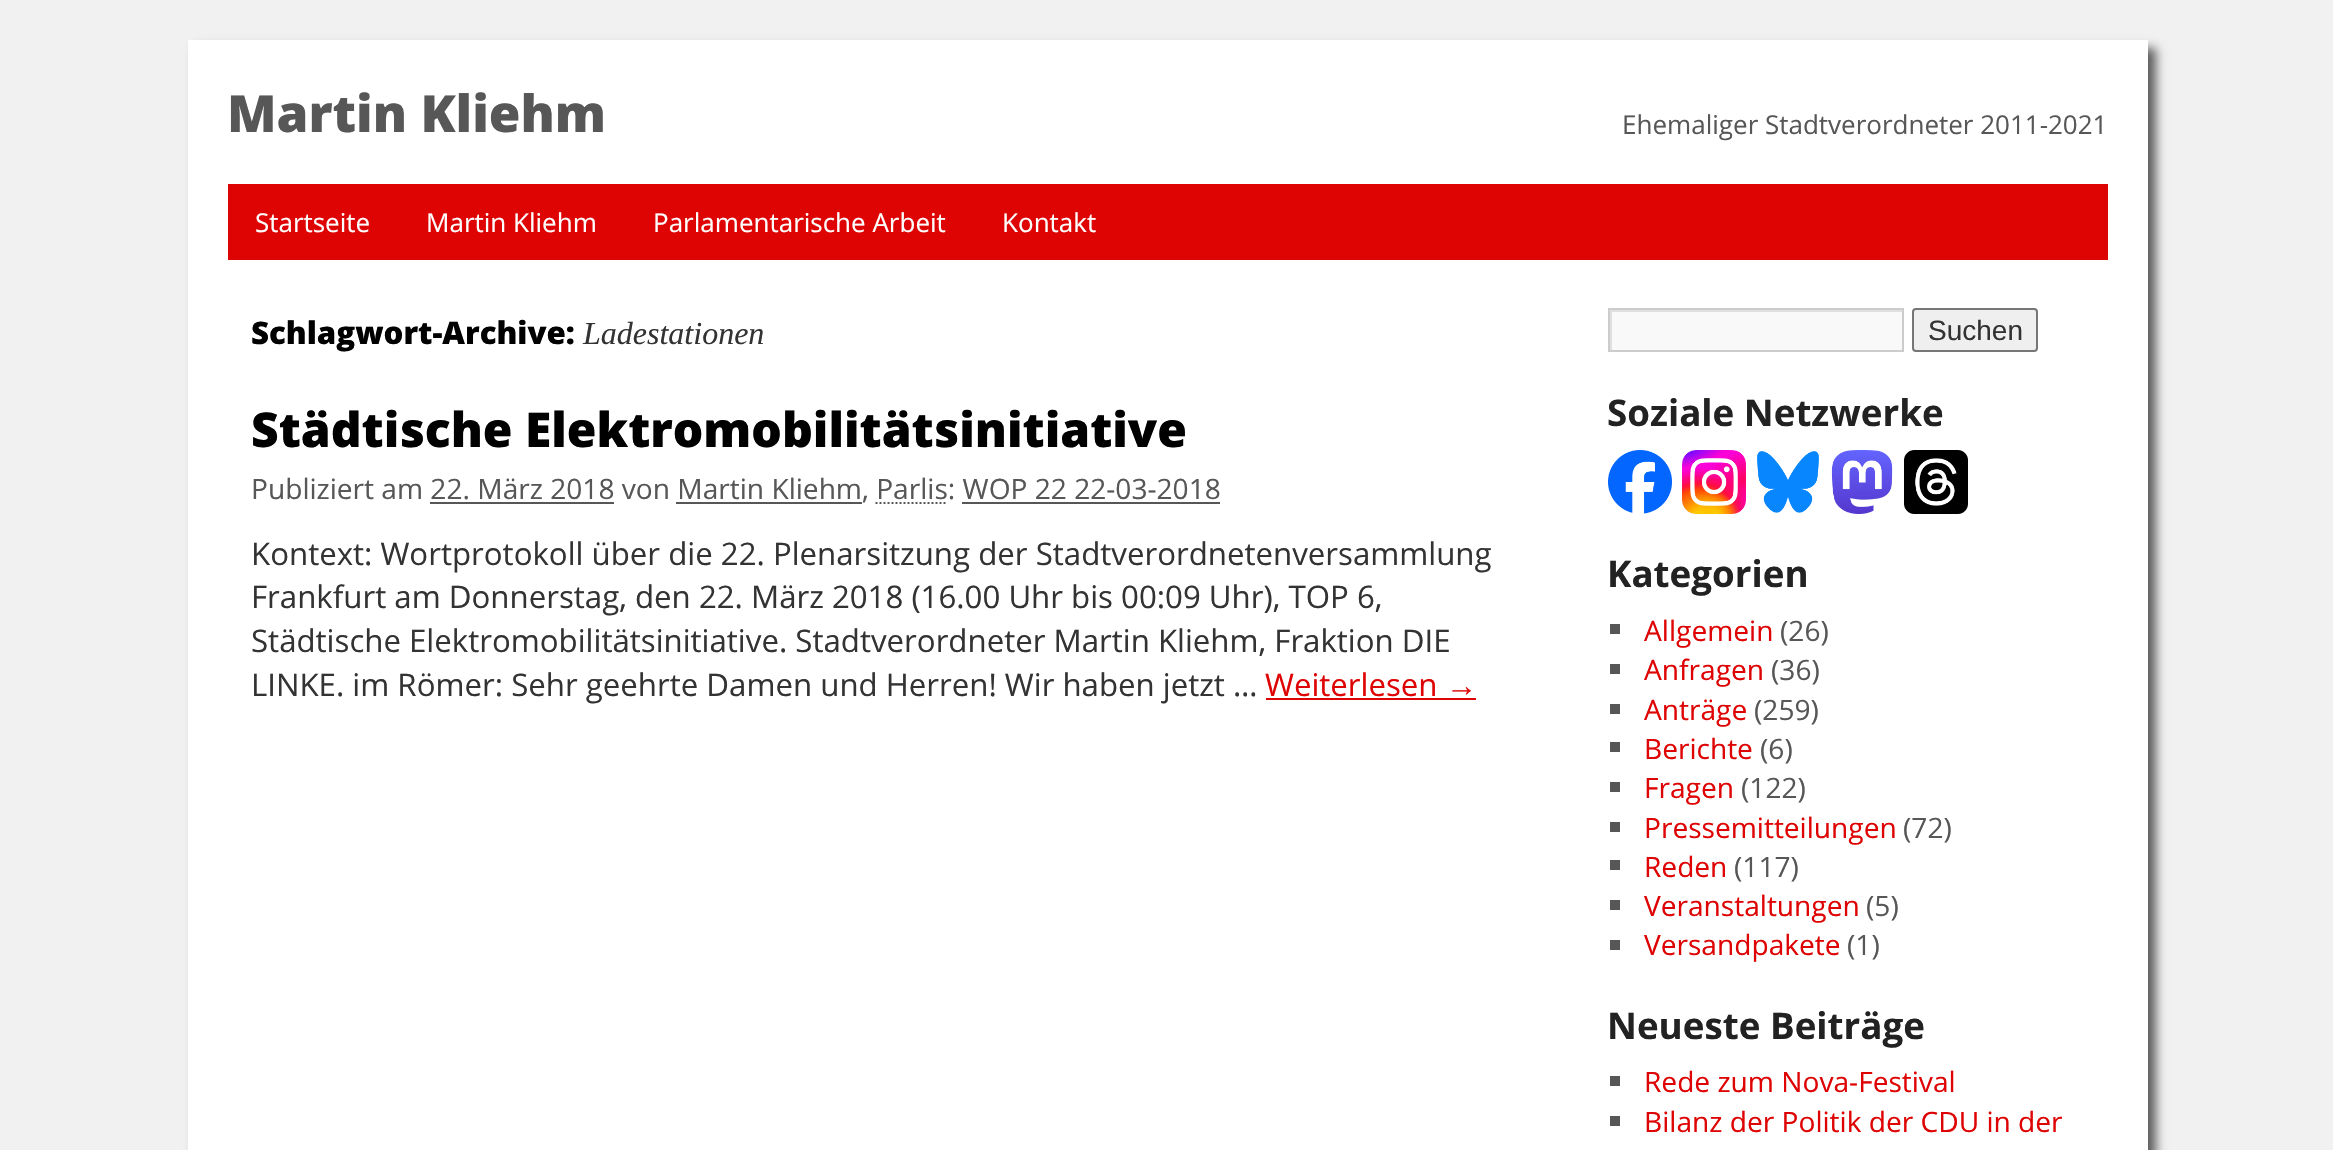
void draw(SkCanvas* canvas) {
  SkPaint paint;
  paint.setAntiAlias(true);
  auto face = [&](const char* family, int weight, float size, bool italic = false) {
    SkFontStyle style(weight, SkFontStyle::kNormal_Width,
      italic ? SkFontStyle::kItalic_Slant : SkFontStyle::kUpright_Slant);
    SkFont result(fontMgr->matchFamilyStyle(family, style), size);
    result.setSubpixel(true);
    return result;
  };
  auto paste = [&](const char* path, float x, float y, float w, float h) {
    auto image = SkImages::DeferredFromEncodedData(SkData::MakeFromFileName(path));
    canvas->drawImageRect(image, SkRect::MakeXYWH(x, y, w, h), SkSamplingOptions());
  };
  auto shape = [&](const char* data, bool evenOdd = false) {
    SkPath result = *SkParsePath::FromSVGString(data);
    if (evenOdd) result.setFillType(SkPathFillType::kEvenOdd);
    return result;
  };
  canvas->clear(0xfff1f1f1);
  paint.setColor(0xff5c5c5c);
  paint.setMaskFilter(SkMaskFilter::MakeBlur(kNormal_SkBlurStyle, 5));
  canvas->drawRect(SkRect::MakeXYWH(196, 48, 1960, 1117), paint);
  paint.setMaskFilter(nullptr);
  {
    const struct { float x, y, w, h; SkColor color; } items[] = {
      {188, 40, 1960, 1110, 0xffffffff},
      {228, 184, 1880, 76, 0xffdf0404},
      {430, 502, 184, 2, 0xff575757},
      {676, 502, 186, 2, 0xff575757},
    };
    for (auto [x, y, w, h, color] : items) {
      paint.setColor(color);
      canvas->drawRect(SkRect::MakeXYWH(x, y, w, h), paint);
    }
  }
  paint.setStroke(true);
  paint.setStrokeWidth(2);
  paint.setPathEffect(SkDashPathEffect::Make({{2, 2}}, 0));
  canvas->drawPath(shape("M875.5 503H947"), paint);
  paint.setPathEffect(nullptr);
  paint.setStroke(false);
  {
    const struct { float x, y, w, h; SkColor color; } items[] = {
      {962, 502, 258, 2, 0xff575757},
      {1266, 698, 210, 2, 0xffdf0404},
      {1612, 312, 290, 38, 0xfff9f9f9},
    };
    for (auto [x, y, w, h, color] : items) {
      paint.setColor(color);
      canvas->drawRect(SkRect::MakeXYWH(x, y, w, h), paint);
    }
  }
  canvas->save();
  canvas->clipRect(SkRect::MakeXYWH(1610, 310, 292, 40));
  paint.setColor(0xffe0e0e0);
  canvas->drawPath(shape("M1412 112H2100V548H1412ZM1612 312H1904V352H1612Z", true), paint);
  canvas->restore();
  paint.setStroke(true);
  paint.setColor(0xffcccccc);
  canvas->drawRect(SkRect::MakeXYWH(1609, 309, 294, 42), paint);
  paint.setStroke(false);
  paint.setColor(0xffefefef);
  canvas->drawRoundRect(SkRect::MakeXYWH(1913, 309, 124, 42), 3, 3, paint);
  paint.setStroke(true);
  paint.setColor(0xff767676);
  canvas->drawRoundRect(SkRect::MakeXYWH(1913, 309, 124, 42), 3, 3, paint);
  paste("img/1.png", 1608, 450, 64, 64);
  paste("img/2.png", 1682, 450, 64, 64);
  paste("img/3.png", 1757, 451, 62, 62);
  paste("img/4.png", 1831, 450, 62, 64);
  paste("img/5.png", 1904, 450, 64, 64);
  paint.setStroke(false);
  {
    const struct { float x, y, w, h; SkColor color; } items[] = {
      {1610, 624, 10, 10, 0xff575757},
      {1610, 664, 10, 10, 0xff575757},
      {1610, 704, 10, 10, 0xff575757},
      {1610, 742, 10, 10, 0xff575757},
      {1610, 782, 10, 10, 0xff575757},
      {1610, 822, 10, 10, 0xff575757},
      {1610, 860, 10, 10, 0xff575757},
      {1610, 900, 10, 10, 0xff575757},
      {1610, 940, 10, 10, 0xff575757},
      {1610, 1076, 10, 10, 0xff575757},
      {1610, 1116, 10, 10, 0xff575757},
    };
    for (auto [x, y, w, h, color] : items) {
      paint.setColor(color);
      canvas->drawRect(SkRect::MakeXYWH(x, y, w, h), paint);
    }
  }
  auto f0 = face("Open Sans", 800, 51.25f);
  canvas->drawString("Martin Kliehm", 227, 132, f0, paint);
  auto f1 = face("Open Sans", 400, 26);
  canvas->drawString("Ehemaliger Stadtverordneter 2011-2021", 1622, 134, f1, paint);
  paint.setColor(0xffffffff);
  {
    const struct { const char* s; float x, y; } items[] = {
      {"Startseite", 255, 232},
      {"Martin Kliehm", 426, 232},
      {"Parlamentarische Arbeit", 653, 232},
      {"Kontakt", 1002, 232},
    };
    for (auto [s, x, y] : items) {
      canvas->drawString(s, x, y, f1, paint);
    }
  }
  auto f2 = face("Open Sans", 800, 31.2f);
  paint.setColor(0xff000000);
  canvas->drawString("Schlagwort-Archive:", 251, 344, f2, paint);
  auto f3 = face("Liberation Serif", 400, 32, true);
  paint.setColor(0xff333333);
  canvas->drawString("Ladestationen", 583, 344, f3, paint);
  auto f4 = face("Open Sans", 800, 48);
  paint.setColor(0xff000000);
  canvas->drawString("Städtische Elektromobilitätsinitiative", 251, 447, f4, paint);
  auto f5 = face("Open Sans", 400, 28.1f);
  paint.setColor(0xff575757);
  canvas->drawString("Publiziert am 22. März 2018 von Martin Kliehm, Parlis: WOP 22 22-03-2018", 251, 499, f5, paint);
  auto f6 = face("Open Sans", 400, 31.2f);
  paint.setColor(0xff333333);
  {
    const struct { const char* s; float x, y; } items[] = {
      {"Kontext: Wortprotokoll über die 22. Plenarsitzung der Stadtverordnetenversammlung", 251, 565},
      {"Frankfurt am Donnerstag, den 22. März 2018 (16.00 Uhr bis 00:09 Uhr), TOP 6,", 251, 608},
      {"Städtische Elektromobilitätsinitiative. Stadtverordneter Martin Kliehm, Fraktion DIE", 251, 652},
      {"LINKE. im Römer: Sehr geehrte Damen und Herren! Wir haben jetzt …", 251, 696},
    };
    for (auto [s, x, y] : items) {
      canvas->drawString(s, x, y, f6, paint);
    }
  }
  paint.setColor(0xffdf0404);
  canvas->drawString("Weiterlesen", 1265, 696, f6, paint);
  auto f7 = face("Liberation Sans", 400, 31.2f);
  canvas->drawString("→", 1446, 696, f7, paint);
  auto f8 = face("Liberation Sans", 400, 28);
  paint.setColor(0xff333333);
  canvas->drawString("Suchen", 1928, 340, f8, paint);
  auto f9 = face("Open Sans", 700, 36.75f);
  paint.setColor(0xff222222);
  canvas->drawString("Soziale Netzwerke", 1607, 426, f9, paint);
  canvas->drawString("Kategorien", 1607, 587, f9, paint);
  paint.setColor(0xffdf0404);
  canvas->drawString("Allgemein", 1644, 641, f5, paint);
  paint.setColor(0xff575757);
  canvas->drawString("(26)", 1780, 641, f5, paint);
  paint.setColor(0xffdf0404);
  canvas->drawString("Anfragen", 1644, 680, f5, paint);
  paint.setColor(0xff575757);
  canvas->drawString("(36)", 1771, 680, f5, paint);
  paint.setColor(0xffdf0404);
  canvas->drawString("Anträge", 1644, 720, f5, paint);
  paint.setColor(0xff575757);
  canvas->drawString("(259)", 1754, 720, f5, paint);
  paint.setColor(0xffdf0404);
  canvas->drawString("Berichte", 1644, 759, f5, paint);
  paint.setColor(0xff575757);
  canvas->drawString("(6)", 1760, 759, f5, paint);
  paint.setColor(0xffdf0404);
  canvas->drawString("Fragen", 1644, 798, f5, paint);
  paint.setColor(0xff575757);
  canvas->drawString("(122)", 1741, 798, f5, paint);
  paint.setColor(0xffdf0404);
  canvas->drawString("Pressemitteilungen", 1644, 838, f5, paint);
  paint.setColor(0xff575757);
  canvas->drawString("(72)", 1903, 838, f5, paint);
  paint.setColor(0xffdf0404);
  canvas->drawString("Reden", 1644, 877, f5, paint);
  paint.setColor(0xff575757);
  canvas->drawString("(117)", 1734, 877, f5, paint);
  paint.setColor(0xffdf0404);
  canvas->drawString("Veranstaltungen", 1644, 916, f5, paint);
  paint.setColor(0xff575757);
  canvas->drawString("(5)", 1866, 916, f5, paint);
  paint.setColor(0xffdf0404);
  canvas->drawString("Versandpakete", 1644, 955, f5, paint);
  paint.setColor(0xff575757);
  canvas->drawString("(1)", 1847, 955, f5, paint);
  paint.setColor(0xff222222);
  canvas->drawString("Neueste Beiträge", 1607, 1039, f9, paint);
  paint.setColor(0xffdf0404);
  canvas->drawString("Rede zum Nova-Festival", 1644, 1092, f5, paint);
  canvas->drawString("Bilanz der Politik der CDU in der", 1644, 1132, f5, paint);
}
